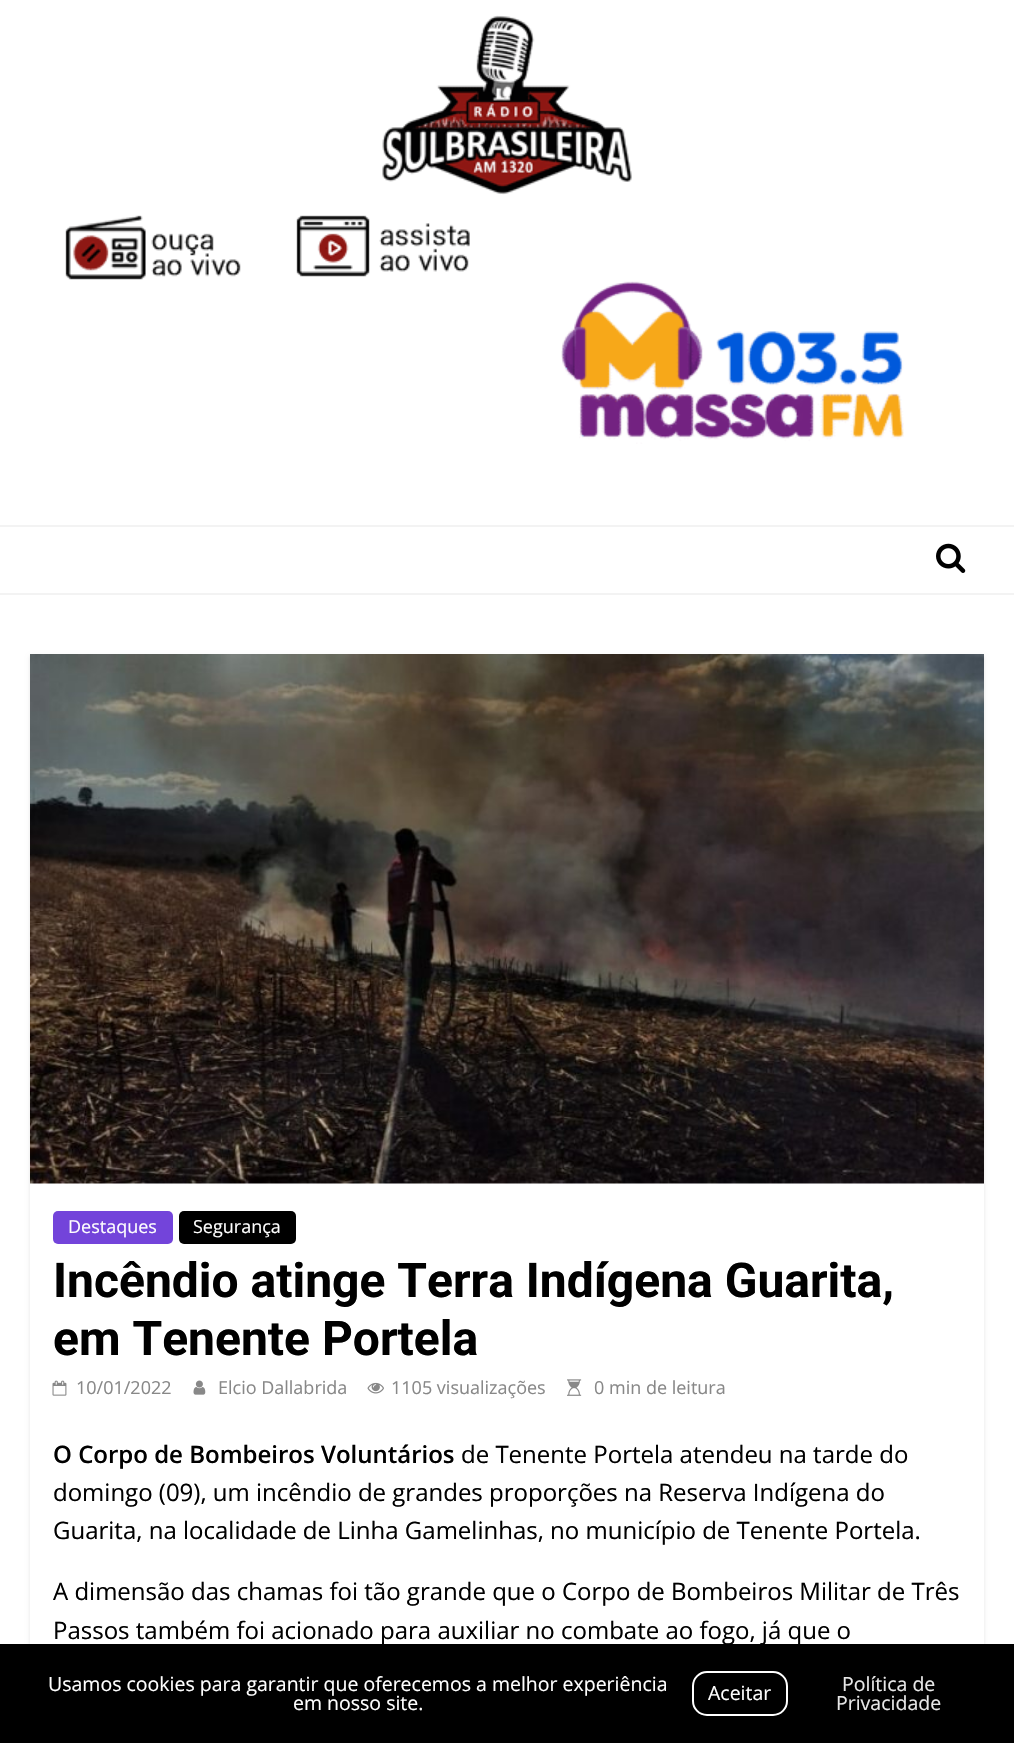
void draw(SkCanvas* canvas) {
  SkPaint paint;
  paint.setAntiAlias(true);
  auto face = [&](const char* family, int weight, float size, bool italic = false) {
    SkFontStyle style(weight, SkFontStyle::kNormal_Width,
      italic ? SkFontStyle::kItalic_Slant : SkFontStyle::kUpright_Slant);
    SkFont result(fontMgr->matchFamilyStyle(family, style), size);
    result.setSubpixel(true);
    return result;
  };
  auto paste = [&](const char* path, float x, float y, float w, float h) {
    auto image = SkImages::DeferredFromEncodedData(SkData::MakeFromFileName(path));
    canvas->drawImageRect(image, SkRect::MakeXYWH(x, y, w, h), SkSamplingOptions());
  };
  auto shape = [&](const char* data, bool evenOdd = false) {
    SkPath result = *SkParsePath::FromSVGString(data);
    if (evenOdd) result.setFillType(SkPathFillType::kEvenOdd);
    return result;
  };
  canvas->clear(0xffffffff);
  paste("img/1.png", 382, 15, 250, 180);
  paste("img/2.png", 65, 215, 176, 65);
  paste("img/3.png", 296, 215, 174, 62);
  paste("img/4.png", 561, 281, 343, 163);
  paint.setColor(0xfff3f3f3);
  canvas->drawRect(SkRect::MakeXYWH(0, 525, 1014, 2), paint);
  canvas->drawRect(SkRect::MakeXYWH(0, 593, 1014, 2), paint);
  paste("img/5.png", 936, 543, 30, 30);
  canvas->save();
  canvas->clipPath(shape("M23 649H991V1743H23ZM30 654H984V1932H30Z", true), true);
  paint.setColor(0x1a000000);
  paint.setMaskFilter(SkMaskFilter::MakeBlur(kNormal_SkBlurStyle, 2));
  canvas->drawRect(SkRect::MakeXYWH(30, 656, 954, 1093), paint);
  paint.setMaskFilter(nullptr);
  canvas->restore();
  paste("img/6.png", 30, 654, 954, 530);
  paint.setColor(0xff7344da);
  canvas->drawRoundRect(SkRect::MakeXYWH(53, 1211, 120, 33), 5, 5, paint);
  paint.setColor(0xff000000);
  canvas->drawRoundRect(SkRect::MakeXYWH(179, 1211, 117, 33), 5, 5, paint);
  paste("img/7.png", 52, 1380, 15, 16);
  paste("img/8.png", 193, 1380, 13, 15);
  paste("img/9.png", 367, 1382, 17, 12);
  paste("img/10.png", 567, 1379, 15, 17);
  canvas->drawRect(SkRect::MakeXYWH(0, 1644, 1014, 99), paint);
  paint.setStroke(true);
  paint.setStrokeWidth(2);
  paint.setColor(0xffffffff);
  canvas->drawRoundRect(SkRect::MakeXYWH(693, 1672, 94, 43), 14, 14, paint);
  auto f0 = face("Open Sans", 400, 18);
  paint.setStroke(false);
  canvas->drawString("Destaques", 68, 1233, f0, paint);
  canvas->drawString("Segurança", 193, 1233, f0, paint);
  auto f1 = face("Roboto", 700, 48);
  paint.setColor(0xff000000);
  canvas->drawString("Incêndio atinge Terra Indígena Guarita,", 53, 1297, f1, paint);
  canvas->drawString("em Tenente Portela", 53, 1355, f1, paint);
  paint.setColor(0xff888888);
  {
    const struct { const char* s; float x, y; } items[] = {
      {"10/01/2022", 76, 1394},
      {"Elcio Dallabrida", 218, 1394},
      {"1105 visualizações", 391, 1394},
      {"0 min de leitura", 594, 1394},
    };
    for (auto [s, x, y] : items) {
      canvas->drawString(s, x, y, f0, paint);
    }
  }
  auto f2 = face("Open Sans", 600, 24);
  paint.setColor(0xff000000);
  canvas->drawString("O Corpo de Bombeiros Voluntários", 53, 1463, f2, paint);
  auto f3 = face("Open Sans", 400, 24);
  {
    const struct { const char* s; float x, y; } items[] = {
      {"de Tenente Portela atendeu na tarde do", 461, 1463},
      {"domingo (09), um incêndio de grandes proporções na Reserva Indígena do", 53, 1501},
      {"Guarita, na localidade de Linha Gamelinhas, no município de Tenente Portela.", 53, 1539},
      {"A dimensão das chamas foi tão grande que o Corpo de Bombeiros Militar de Três", 53, 1600},
      {"Passos também foi acionado para auxiliar no combate ao fogo, já que o", 53, 1639},
    };
    for (auto [s, x, y] : items) {
      canvas->drawString(s, x, y, f3, paint);
    }
  }
  auto f4 = face("Open Sans", 400, 19.5f);
  paint.setColor(0xffffffff);
  {
    const struct { const char* s; float x, y; } items[] = {
      {"Usamos cookies para garantir que oferecemos a melhor experiência", 48, 1691},
      {"em nosso site.", 293, 1710},
      {"Aceitar", 708, 1700},
    };
    for (auto [s, x, y] : items) {
      canvas->drawString(s, x, y, f4, paint);
    }
  }
  paint.setColor(0xffe8e8e8);
  canvas->drawString("Política de", 842, 1691, f4, paint);
  canvas->drawString("Privacidade", 836, 1710, f4, paint);
}
